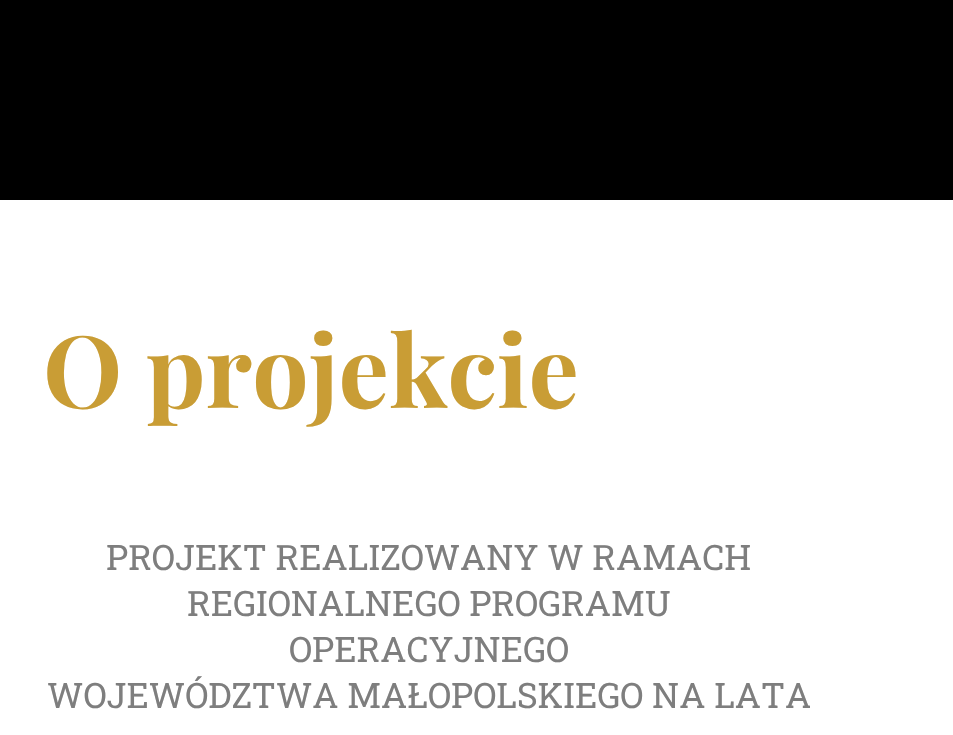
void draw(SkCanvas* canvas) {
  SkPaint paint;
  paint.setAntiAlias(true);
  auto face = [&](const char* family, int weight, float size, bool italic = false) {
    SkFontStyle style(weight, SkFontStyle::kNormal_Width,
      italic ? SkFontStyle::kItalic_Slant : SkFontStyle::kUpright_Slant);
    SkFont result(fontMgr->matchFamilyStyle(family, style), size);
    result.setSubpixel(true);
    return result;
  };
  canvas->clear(0xffffffff);
  paint.setColor(0xff000000);
  canvas->drawRect(SkRect::MakeXYWH(0, 0, 953, 200), paint);
  auto f0 = face("Playfair Display", 700, 100);
  paint.setColor(0xffc99d35);
  canvas->drawString("O projekcie", 43, 408, f0, paint);
  auto f1 = face("Roboto Slab", 400, 35);
  paint.setColor(0xff7e7e7e);
  {
    const struct { const char* s; float x, y; } items[] = {
      {"PROJEKT REALIZOWANY W RAMACH", 106, 570},
      {"REGIONALNEGO PROGRAMU", 187, 616},
      {"OPERACYJNEGO", 289, 662},
      {"WOJEWÓDZTWA MAŁOPOLSKIEGO NA LATA", 47, 708},
    };
    for (auto [s, x, y] : items) {
      canvas->drawString(s, x, y, f1, paint);
    }
  }
}
